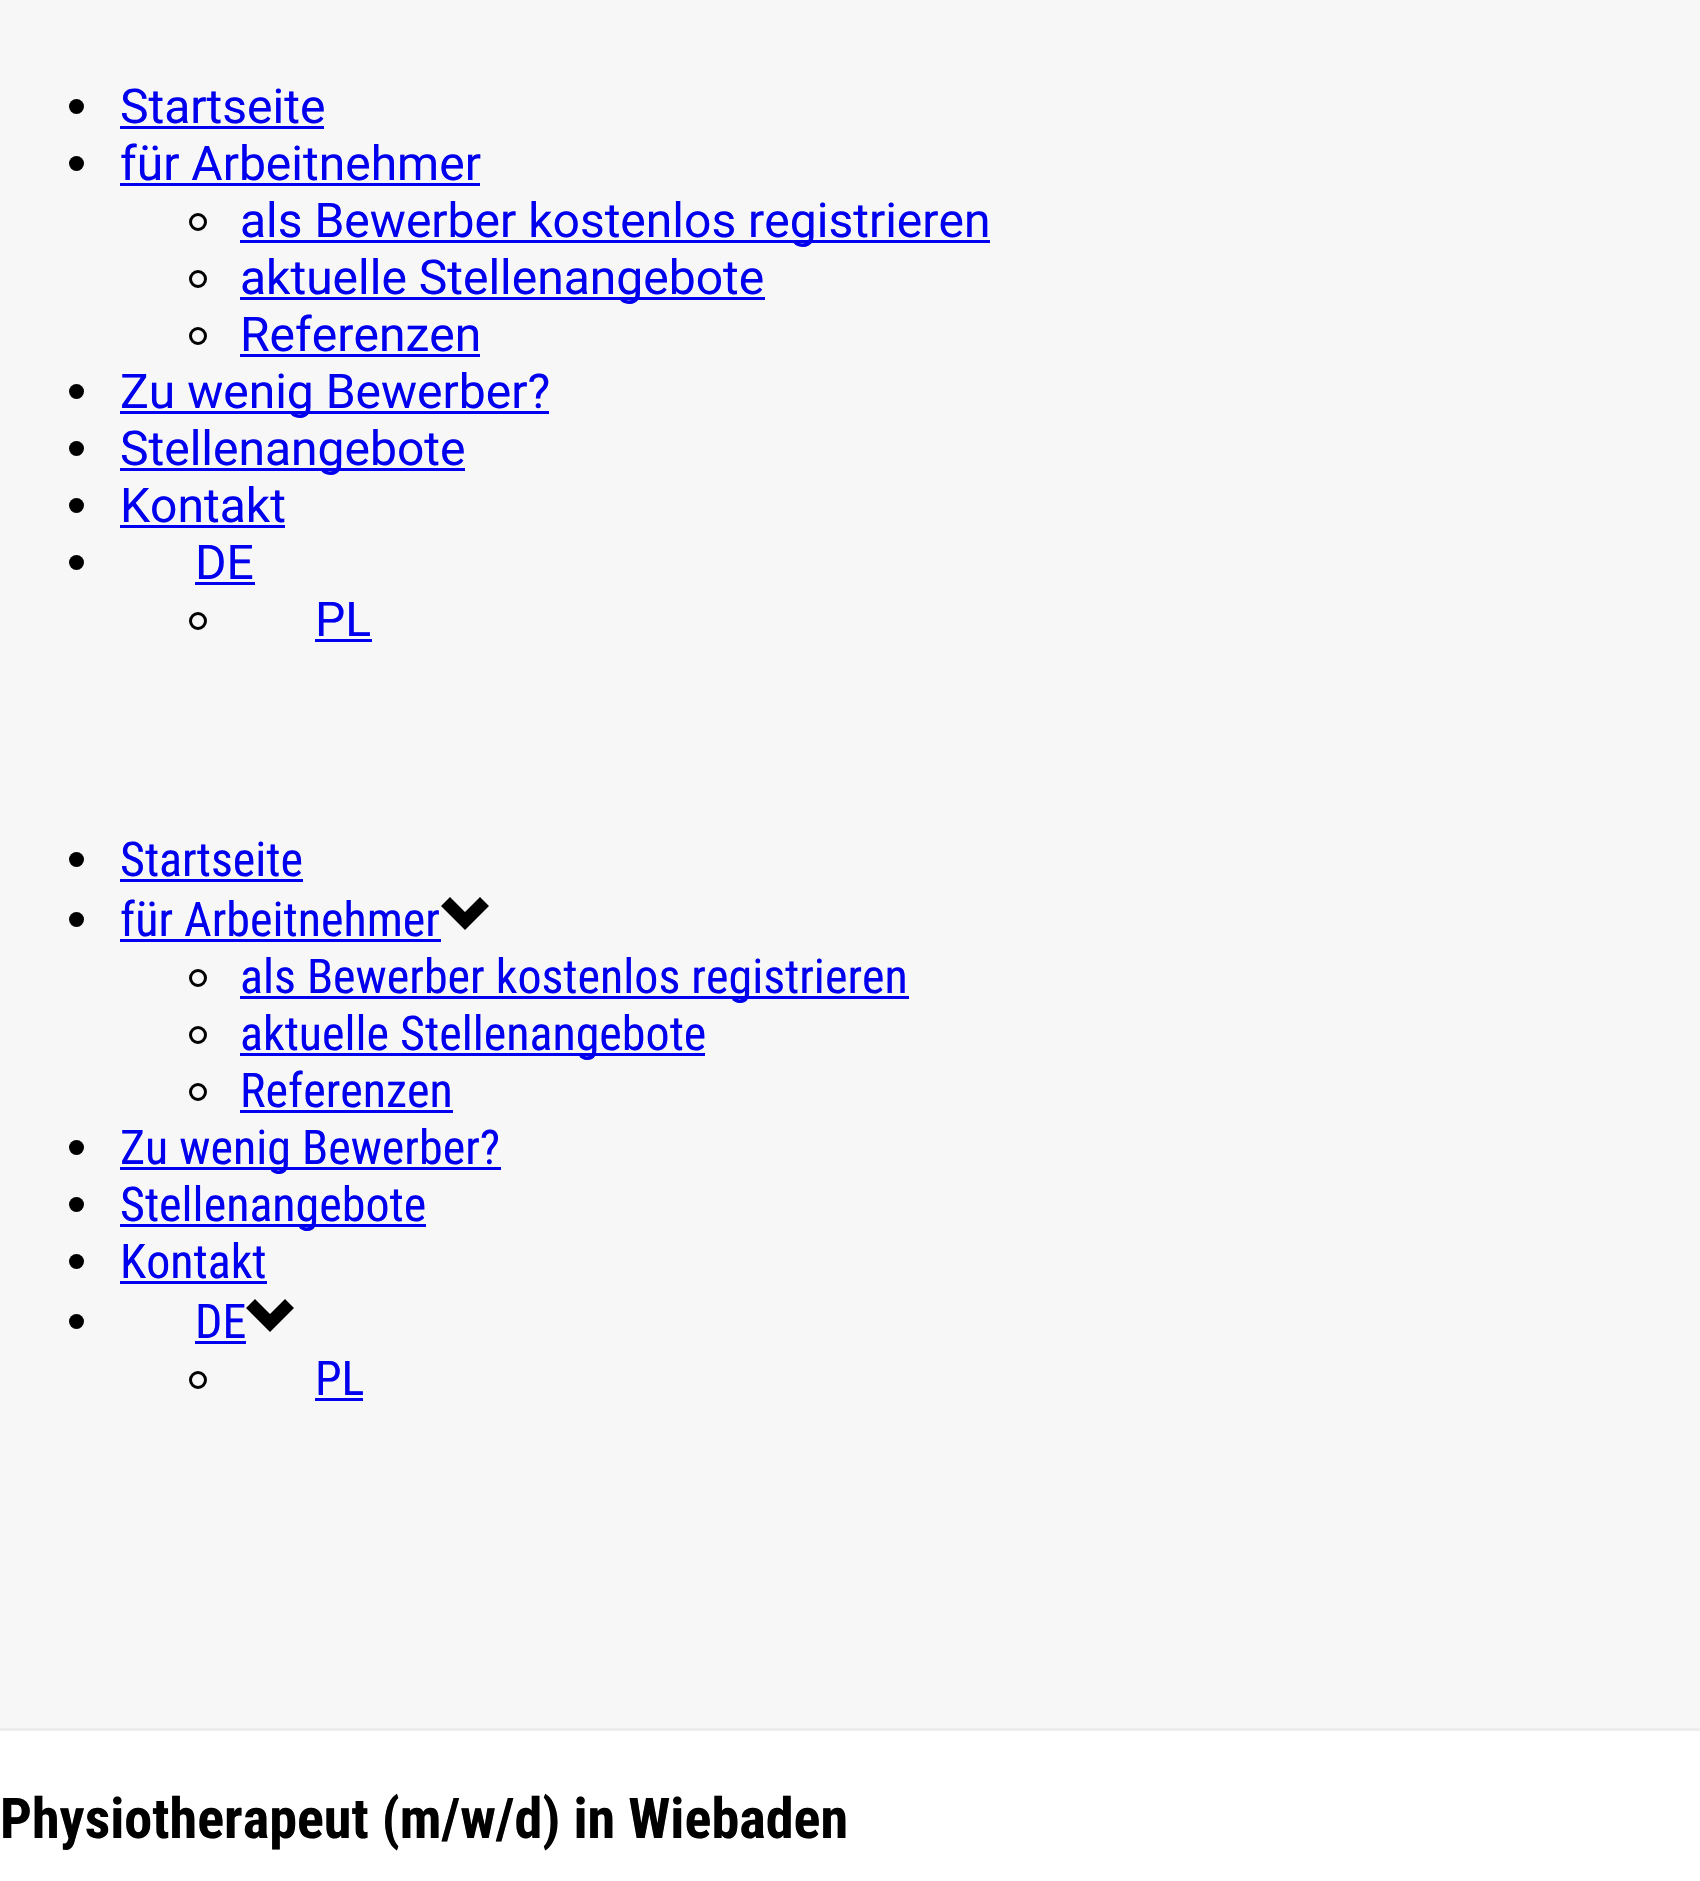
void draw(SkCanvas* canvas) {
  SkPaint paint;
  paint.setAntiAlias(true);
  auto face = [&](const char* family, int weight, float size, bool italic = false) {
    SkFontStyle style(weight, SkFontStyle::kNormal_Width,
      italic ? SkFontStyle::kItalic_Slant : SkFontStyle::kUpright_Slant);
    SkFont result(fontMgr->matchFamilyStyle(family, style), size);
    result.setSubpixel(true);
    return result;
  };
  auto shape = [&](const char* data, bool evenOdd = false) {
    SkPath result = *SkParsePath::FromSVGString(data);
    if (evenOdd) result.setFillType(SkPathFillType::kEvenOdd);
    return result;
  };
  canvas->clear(0xffffffff);
  paint.setColor(0xfff7f7f7);
  canvas->drawRect(SkRect::MakeXYWH(0, 0, 1700, 1728), paint);
  paint.setColor(0xffededed);
  canvas->drawRect(SkRect::MakeXYWH(0, 1728, 1700, 3), paint);
  paint.setColor(0xff000000);
  canvas->drawCircle(76.5f, 106.5f, 7.5f, paint);
  paint.setColor(0xff0000ee);
  canvas->drawRect(SkRect::MakeXYWH(120, 126, 204, 3), paint);
  paint.setColor(0xff000000);
  canvas->drawCircle(76.5f, 163.5f, 7.5f, paint);
  paint.setColor(0xff0000ee);
  canvas->drawRect(SkRect::MakeXYWH(120, 183, 360, 3), paint);
  paint.setStroke(true);
  paint.setStrokeWidth(3);
  paint.setColor(0xff000000);
  canvas->drawCircle(198, 222, 7.5f, paint);
  paint.setStroke(false);
  paint.setColor(0xff0000ee);
  canvas->drawRect(SkRect::MakeXYWH(240, 240, 750, 3), paint);
  paint.setStroke(true);
  paint.setColor(0xff000000);
  canvas->drawCircle(198, 279, 7.5f, paint);
  paint.setStroke(false);
  paint.setColor(0xff0000ee);
  canvas->drawRect(SkRect::MakeXYWH(240, 297, 525, 3), paint);
  paint.setStroke(true);
  paint.setColor(0xff000000);
  canvas->drawCircle(198, 336, 7.5f, paint);
  paint.setStroke(false);
  paint.setColor(0xff0000ee);
  canvas->drawRect(SkRect::MakeXYWH(240, 354, 240, 3), paint);
  paint.setColor(0xff000000);
  canvas->drawCircle(76.5f, 391.5f, 7.5f, paint);
  paint.setColor(0xff0000ee);
  canvas->drawRect(SkRect::MakeXYWH(120, 411, 429, 3), paint);
  paint.setColor(0xff000000);
  canvas->drawCircle(76.5f, 448.5f, 7.5f, paint);
  paint.setColor(0xff0000ee);
  canvas->drawRect(SkRect::MakeXYWH(120, 468, 345, 3), paint);
  paint.setColor(0xff000000);
  canvas->drawCircle(76.5f, 505.5f, 7.5f, paint);
  paint.setColor(0xff0000ee);
  canvas->drawRect(SkRect::MakeXYWH(120, 525, 165, 3), paint);
  paint.setColor(0xff000000);
  canvas->drawCircle(76.5f, 562.5f, 7.5f, paint);
  paint.setColor(0xff0000ee);
  canvas->drawRect(SkRect::MakeXYWH(195, 582, 60, 3), paint);
  paint.setStroke(true);
  paint.setColor(0xff000000);
  canvas->drawCircle(198, 621, 7.5f, paint);
  paint.setStroke(false);
  paint.setColor(0xff0000ee);
  canvas->drawRect(SkRect::MakeXYWH(315, 639, 57, 3), paint);
  paint.setColor(0xff000000);
  canvas->drawCircle(76.5f, 859.5f, 7.5f, paint);
  paint.setColor(0xff0000ee);
  canvas->drawRect(SkRect::MakeXYWH(120, 879, 183, 3), paint);
  paint.setColor(0xff000000);
  canvas->drawCircle(76.5f, 919.5f, 7.5f, paint);
  paint.setColor(0xff0000ee);
  canvas->drawRect(SkRect::MakeXYWH(120, 939, 321, 3), paint);
  paint.setColor(0xff000000);
  canvas->drawPath(shape("M489 906L480 897L465 912L450 897L441 906L465 930Z"), paint);
  paint.setStroke(true);
  canvas->drawCircle(198, 978, 7.5f, paint);
  paint.setStroke(false);
  paint.setColor(0xff0000ee);
  canvas->drawRect(SkRect::MakeXYWH(240, 996, 669, 3), paint);
  paint.setStroke(true);
  paint.setColor(0xff000000);
  canvas->drawCircle(198, 1035, 7.5f, paint);
  paint.setStroke(false);
  paint.setColor(0xff0000ee);
  canvas->drawRect(SkRect::MakeXYWH(240, 1053, 465, 3), paint);
  paint.setStroke(true);
  paint.setColor(0xff000000);
  canvas->drawCircle(198, 1092, 7.5f, paint);
  paint.setStroke(false);
  paint.setColor(0xff0000ee);
  canvas->drawRect(SkRect::MakeXYWH(240, 1110, 213, 3), paint);
  paint.setColor(0xff000000);
  canvas->drawCircle(76.5f, 1147.5f, 7.5f, paint);
  paint.setColor(0xff0000ee);
  canvas->drawRect(SkRect::MakeXYWH(120, 1167, 381, 3), paint);
  paint.setColor(0xff000000);
  canvas->drawCircle(76.5f, 1204.5f, 7.5f, paint);
  paint.setColor(0xff0000ee);
  canvas->drawRect(SkRect::MakeXYWH(120, 1224, 306, 3), paint);
  paint.setColor(0xff000000);
  canvas->drawCircle(76.5f, 1261.5f, 7.5f, paint);
  paint.setColor(0xff0000ee);
  canvas->drawRect(SkRect::MakeXYWH(120, 1281, 147, 3), paint);
  paint.setColor(0xff000000);
  canvas->drawCircle(76.5f, 1321.5f, 7.5f, paint);
  paint.setColor(0xff0000ee);
  canvas->drawRect(SkRect::MakeXYWH(195, 1341, 51, 3), paint);
  paint.setColor(0xff000000);
  canvas->drawPath(shape("M294 1308L285 1299L270 1314L255 1299L246 1308L270 1332Z"), paint);
  paint.setStroke(true);
  canvas->drawCircle(198, 1380, 7.5f, paint);
  paint.setStroke(false);
  paint.setColor(0xff0000ee);
  canvas->drawRect(SkRect::MakeXYWH(315, 1398, 48, 3), paint);
  auto f0 = face("Roboto", 400, 48);
  {
    const struct { const char* s; float x, y; } items[] = {
      {"Startseite", 120, 123},
      {"für Arbeitnehmer", 120, 180},
      {"als Bewerber kostenlos registrieren", 240, 237},
      {"aktuelle Stellenangebote", 240, 294},
      {"Referenzen", 240, 351},
      {"Zu wenig Bewerber?", 120, 408},
      {"Stellenangebote", 120, 465},
      {"Kontakt", 120, 522},
      {"DE", 195, 579},
      {"PL", 315, 636},
    };
    for (auto [s, x, y] : items) {
      canvas->drawString(s, x, y, f0, paint);
    }
  }
  auto f1 = face("Roboto Condensed", 400, 48);
  {
    const struct { const char* s; float x, y; } items[] = {
      {"Startseite", 120, 876},
      {"für Arbeitnehmer", 120, 936},
      {"als Bewerber kostenlos registrieren", 240, 993},
      {"aktuelle Stellenangebote", 240, 1050},
      {"Referenzen", 240, 1107},
      {"Zu wenig Bewerber?", 120, 1164},
      {"Stellenangebote", 120, 1221},
      {"Kontakt", 120, 1278},
      {"DE", 195, 1338},
      {"PL", 315, 1395},
    };
    for (auto [s, x, y] : items) {
      canvas->drawString(s, x, y, f1, paint);
    }
  }
  auto f2 = face("Roboto Condensed", 700, 56.2f);
  paint.setColor(0xff000000);
  canvas->drawString("Physiotherapeut (m/w/d) in Wiebaden", 0, 1838, f2, paint);
}
